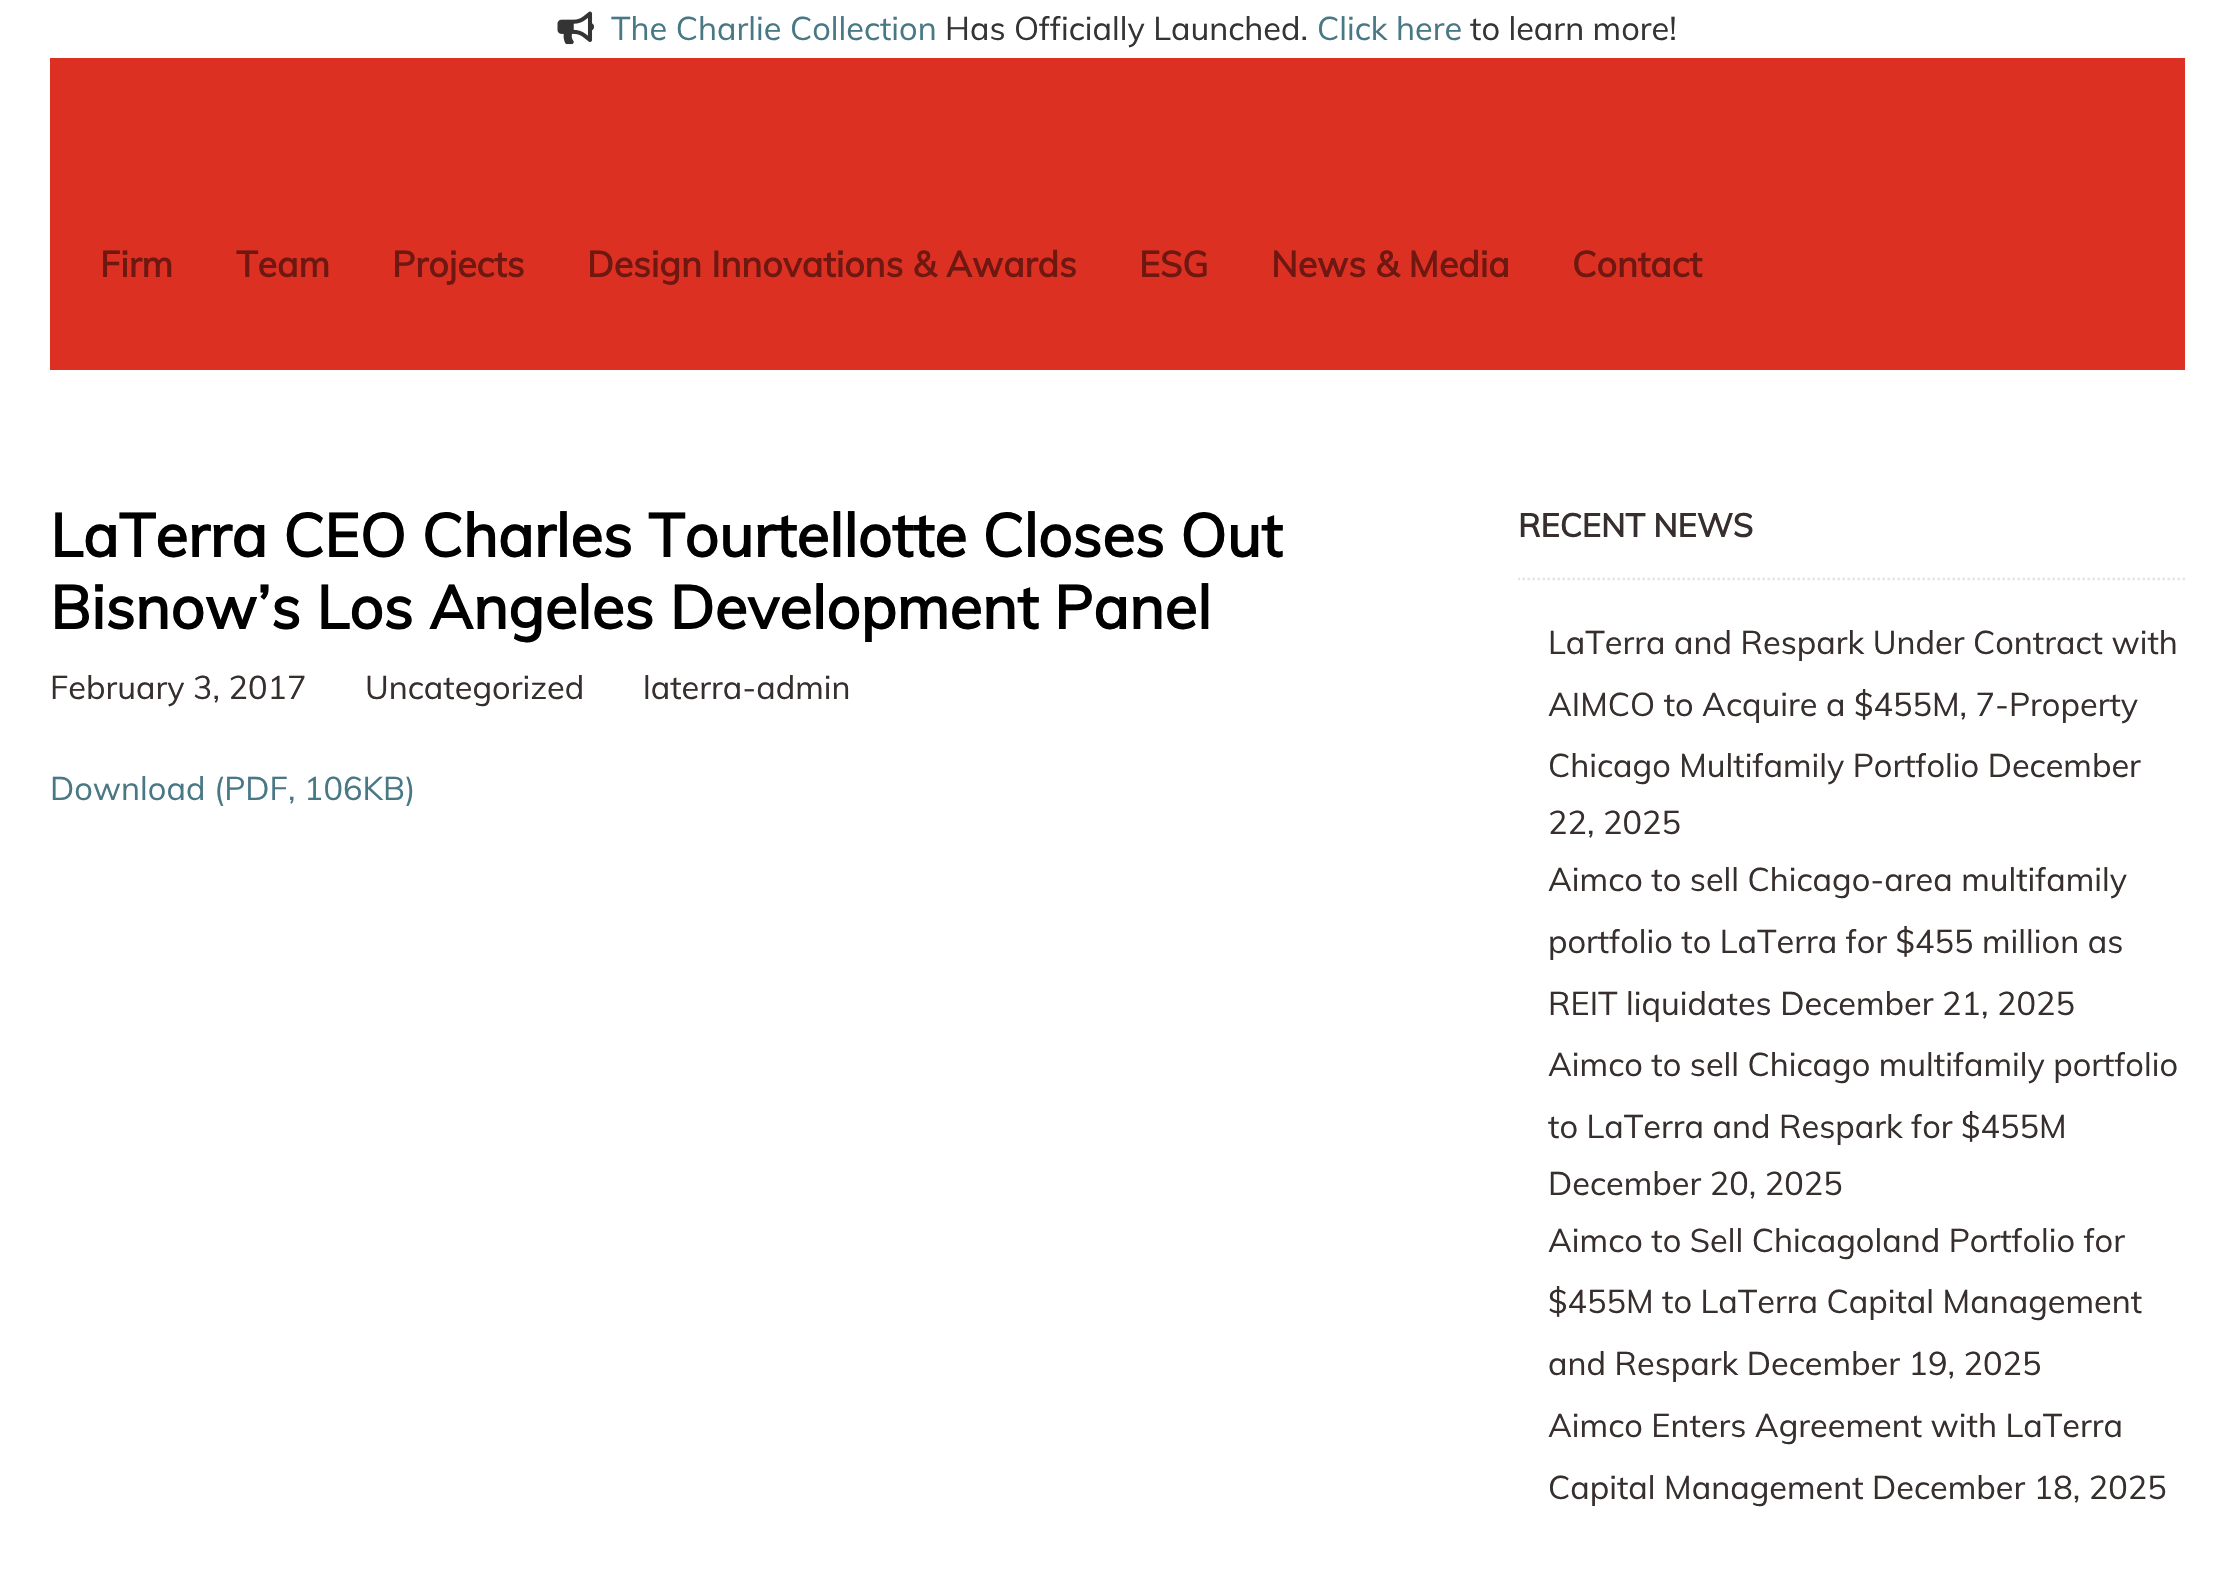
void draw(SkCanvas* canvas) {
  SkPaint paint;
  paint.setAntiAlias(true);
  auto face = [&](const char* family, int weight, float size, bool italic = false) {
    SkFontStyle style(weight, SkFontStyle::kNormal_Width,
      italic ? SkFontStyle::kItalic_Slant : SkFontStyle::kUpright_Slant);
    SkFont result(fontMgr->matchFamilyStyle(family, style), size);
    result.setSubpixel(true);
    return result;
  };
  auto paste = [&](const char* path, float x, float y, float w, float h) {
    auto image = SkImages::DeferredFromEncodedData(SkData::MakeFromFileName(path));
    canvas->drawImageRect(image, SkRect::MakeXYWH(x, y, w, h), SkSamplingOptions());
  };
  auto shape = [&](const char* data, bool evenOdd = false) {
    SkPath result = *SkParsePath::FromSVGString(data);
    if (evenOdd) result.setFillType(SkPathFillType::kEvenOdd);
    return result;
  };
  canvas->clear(0xffffffff);
  paste("img/1.png", 557, 11, 38, 34);
  paint.setColor(0xffdc3022);
  canvas->drawRect(SkRect::MakeXYWH(50, 58, 2135, 312), paint);
  canvas->save();
  canvas->clipRect(SkRect::MakeXYWH(1518, 500, 667, 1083));
  paint.setStroke(true);
  paint.setStrokeWidth(2.5f);
  paint.setColor(0xffe5e5e5);
  paint.setPathEffect(SkDashPathEffect::Make({{2.5f, 2.5f}}, 0));
  canvas->drawPath(shape("M1517.5 579H2185"), paint);
  paint.setPathEffect(nullptr);
  canvas->restore();
  auto f0 = face("Muli", 400, 32.5f);
  paint.setStroke(false);
  paint.setColor(0xff497885);
  canvas->drawString("The Charlie Collection", 611, 40, f0, paint);
  paint.setColor(0xff343434);
  canvas->drawString("Has Officially Launched.", 945, 40, f0, paint);
  paint.setColor(0xff497885);
  canvas->drawString("Click here", 1317, 40, f0, paint);
  paint.setColor(0xff343434);
  canvas->drawString("to learn more!", 1470, 40, f0, paint);
  auto f1 = face("Muli", 700, 35.75f);
  paint.setColor(0xff6e1811);
  {
    const struct { const char* s; float x, y; } items[] = {
      {"Firm", 100, 277},
      {"Team", 236, 277},
      {"Projects", 392, 277},
      {"Design Innovations & Awards", 587, 277},
      {"ESG", 1139, 277},
      {"News & Media", 1271, 277},
      {"Contact", 1572, 277},
    };
    for (auto [s, x, y] : items) {
      canvas->drawString(s, x, y, f1, paint);
    }
  }
  auto f2 = face("Muli", 700, 60.1f);
  paint.setColor(0xff000000);
  canvas->drawString("LaTerra CEO Charles Tourtellotte Closes Out", 50, 557, f2, paint);
  canvas->drawString("Bisnow’s Los Angeles Development Panel", 50, 629, f2, paint);
  paint.setColor(0xff372e2e);
  {
    const struct { const char* s; float x, y; } items[] = {
      {"February 3, 2017", 50, 699},
      {"Uncategorized", 365, 699},
      {"laterra-admin", 643, 699},
    };
    for (auto [s, x, y] : items) {
      canvas->drawString(s, x, y, f0, paint);
    }
  }
  paint.setColor(0xff497885);
  canvas->drawString("Download (PDF, 106KB)", 50, 800, f0, paint);
  auto f3 = face("Muli", 700, 32.5f);
  paint.setColor(0xff372e2e);
  canvas->drawString("RECENT NEWS", 1518, 537, f3, paint);
  {
    const struct { const char* s; float x, y; } items[] = {
      {"LaTerra and Respark Under Contract with", 1548, 654},
      {"AIMCO to Acquire a $455M, 7-Property", 1548, 716},
      {"Chicago Multifamily Portfolio December", 1548, 777},
      {"22, 2025", 1548, 834},
      {"Aimco to sell Chicago-area multifamily", 1548, 891},
      {"portfolio to LaTerra for $455 million as", 1548, 953},
      {"REIT liquidates December 21, 2025", 1548, 1015},
      {"Aimco to sell Chicago multifamily portfolio", 1548, 1076},
      {"to LaTerra and Respark for $455M", 1548, 1138},
      {"December 20, 2025", 1548, 1195},
      {"Aimco to Sell Chicagoland Portfolio for", 1548, 1252},
      {"$455M to LaTerra Capital Management", 1548, 1313},
      {"and Respark December 19, 2025", 1548, 1375},
      {"Aimco Enters Agreement with LaTerra", 1548, 1437},
      {"Capital Management December 18, 2025", 1548, 1499},
    };
    for (auto [s, x, y] : items) {
      canvas->drawString(s, x, y, f0, paint);
    }
  }
}
